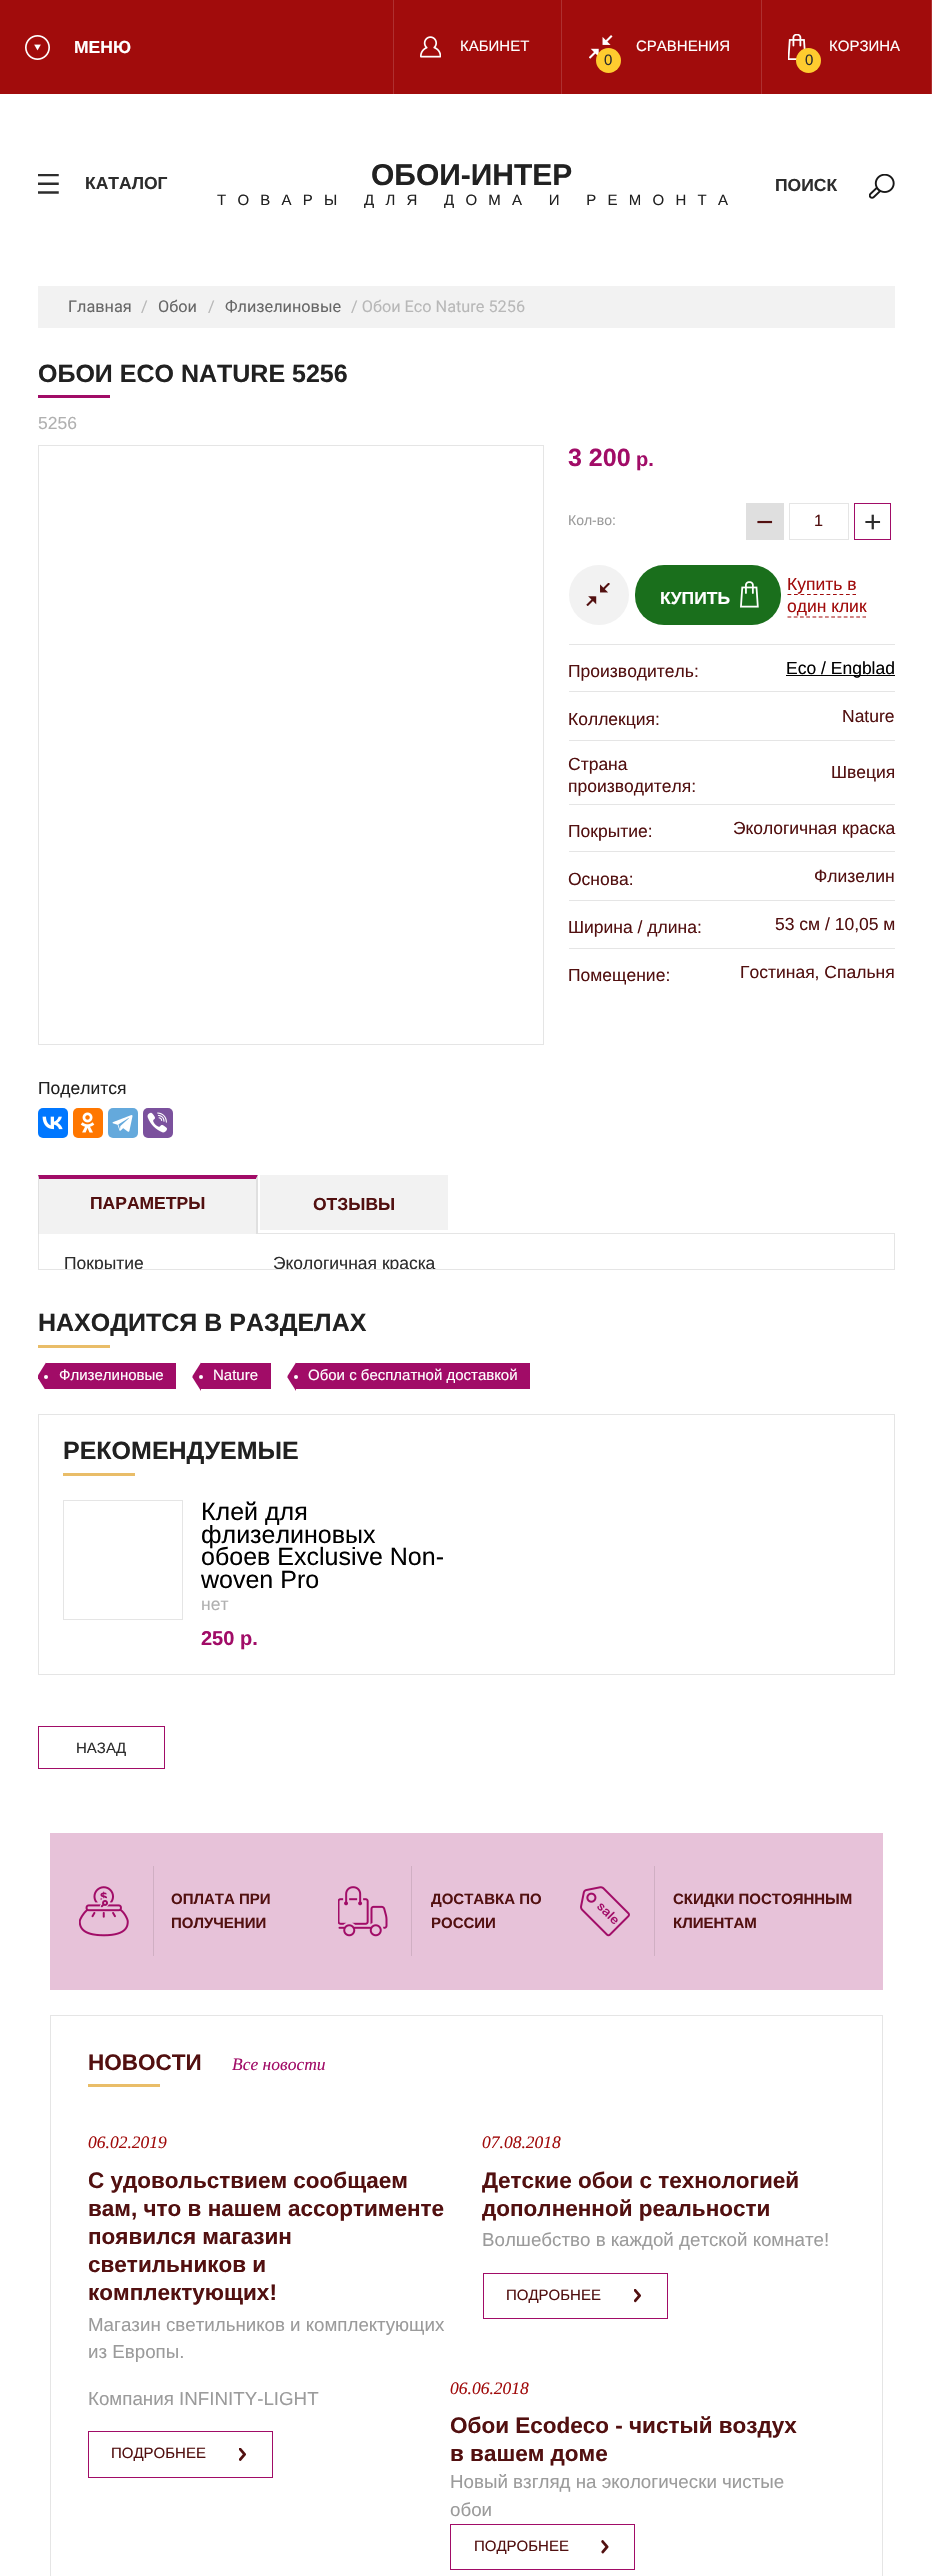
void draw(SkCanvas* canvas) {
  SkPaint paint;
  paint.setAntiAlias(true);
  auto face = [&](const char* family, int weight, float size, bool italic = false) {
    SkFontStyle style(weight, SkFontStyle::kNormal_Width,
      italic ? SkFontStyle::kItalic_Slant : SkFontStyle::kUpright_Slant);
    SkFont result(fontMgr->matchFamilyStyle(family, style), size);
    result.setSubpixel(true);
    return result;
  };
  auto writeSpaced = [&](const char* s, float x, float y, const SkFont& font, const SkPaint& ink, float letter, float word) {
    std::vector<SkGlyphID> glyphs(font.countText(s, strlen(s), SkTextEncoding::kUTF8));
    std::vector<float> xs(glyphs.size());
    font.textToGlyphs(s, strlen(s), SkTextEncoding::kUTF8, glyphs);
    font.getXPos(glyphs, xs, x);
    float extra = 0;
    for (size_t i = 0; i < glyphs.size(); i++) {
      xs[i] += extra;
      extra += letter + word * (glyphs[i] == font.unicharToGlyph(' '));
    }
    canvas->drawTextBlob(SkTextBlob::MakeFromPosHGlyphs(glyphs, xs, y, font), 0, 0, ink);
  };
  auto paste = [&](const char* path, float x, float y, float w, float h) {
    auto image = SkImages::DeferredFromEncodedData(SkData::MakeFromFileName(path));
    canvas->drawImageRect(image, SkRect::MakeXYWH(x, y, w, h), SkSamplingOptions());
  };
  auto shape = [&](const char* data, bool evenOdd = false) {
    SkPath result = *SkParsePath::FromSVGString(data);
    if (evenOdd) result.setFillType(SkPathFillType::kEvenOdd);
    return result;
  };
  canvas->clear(0xffffffff);
  paint.setColor(0xffa10c0c);
  canvas->drawRect(SkRect::MakeXYWH(0, 0, 931, 94), paint);
  paste("img/1.png", 25, 35, 25, 25);
  paste("img/2.png", 420, 36, 21, 22);
  paint.setColor(0xffaf3030);
  canvas->drawRect(SkRect::MakeXYWH(393, 0, 1, 94), paint);
  canvas->drawRect(SkRect::MakeXYWH(561, 0, 1, 94), paint);
  paste("img/3.png", 589, 35, 24, 24);
  canvas->drawRect(SkRect::MakeXYWH(761, 0, 1, 94), paint);
  paint.setColor(0xffffcc2f);
  canvas->drawCircle(608.5f, 60.5f, 12.5f, paint);
  paste("img/4.png", 788, 34, 18, 26);
  paint.setColor(0xffaf3030);
  canvas->drawRect(SkRect::MakeXYWH(931, 0, 1, 94), paint);
  paint.setColor(0xffffcc2f);
  canvas->drawCircle(808.5f, 60.5f, 12.5f, paint);
  paste("img/5.png", 38, 174, 21, 20);
  paste("img/6.png", 869, 174, 26, 25);
  {
    const struct { float x, y, w, h; SkColor color; } items[] = {
      {38, 286, 857, 42, 0xfff2f2f2},
      {38, 395, 72, 3, 0xffa10c67},
      {746, 503, 38, 37, 0xffdfdfdf},
    };
    for (auto [x, y, w, h, color] : items) {
      paint.setColor(color);
      canvas->drawRect(SkRect::MakeXYWH(x, y, w, h), paint);
    }
  }
  paint.setStroke(true);
  paint.setStrokeWidth(1);
  paint.setColor(0xffe5e5e5);
  canvas->drawRect(SkRect::MakeXYWH(789.5f, 503.5f, 59, 36), paint);
  paint.setColor(0xffa10c67);
  canvas->drawRect(SkRect::MakeXYWH(854.5f, 503.5f, 36, 36), paint);
  paint.setStroke(false);
  paint.setColor(0xfff2f2f2);
  canvas->drawCircle(599, 595, 30, paint);
  paste("img/7.png", 586, 583, 24, 23);
  paint.setColor(0xff1a6f1c);
  canvas->drawRoundRect(SkRect::MakeXYWH(635, 565, 146, 60), 29, 29, paint);
  paste("img/8.png", 740, 581, 19, 27);
  paint.setStroke(true);
  paint.setStrokeWidth(1.2f);
  paint.setColor(0xffa10c0c);
  paint.setPathEffect(SkDashPathEffect::Make({{3.75f, 2.75f}}, 0));
  canvas->drawPath(shape("M787.5 594.5H856"), paint);
  paint.setPathEffect(nullptr);
  paint.setPathEffect(SkDashPathEffect::Make({{3.75f, 2.5f}}, 0));
  canvas->drawPath(shape("M787.5 617H866"), paint);
  paint.setPathEffect(nullptr);
  paint.setStroke(false);
  {
    const struct { float x, y, w, h; SkColor color; } items[] = {
      {569, 644, 326, 1, 0xffe5e5e5},
      {786, 675, 109, 1, 0xff000000},
      {569, 691, 326, 1, 0xffe5e5e5},
      {569, 740, 326, 1, 0xffe5e5e5},
      {569, 804, 326, 1, 0xffe5e5e5},
      {569, 851, 326, 1, 0xffe5e5e5},
      {569, 900, 326, 1, 0xffe5e5e5},
      {569, 948, 326, 1, 0xffe5e5e5},
    };
    for (auto [x, y, w, h, color] : items) {
      paint.setColor(color);
      canvas->drawRect(SkRect::MakeXYWH(x, y, w, h), paint);
    }
  }
  paint.setStroke(true);
  paint.setStrokeWidth(1);
  canvas->drawRect(SkRect::MakeXYWH(38.5f, 445.5f, 505, 599), paint);
  paint.setStroke(false);
  paint.setColor(0xff0077ff);
  canvas->drawRoundRect(SkRect::MakeXYWH(38, 1108, 30, 30), 5, 5, paint);
  paste("img/9.png", 42, 1116, 21, 14);
  paint.setColor(0xffff7700);
  canvas->drawRoundRect(SkRect::MakeXYWH(73, 1108, 30, 30), 5, 5, paint);
  paste("img/10.png", 80, 1112, 15, 21);
  paint.setColor(0xff64a9dc);
  canvas->drawRoundRect(SkRect::MakeXYWH(108, 1108, 30, 30), 5, 5, paint);
  paste("img/11.png", 112, 1115, 21, 17);
  paint.setColor(0xff7b519d);
  canvas->drawRoundRect(SkRect::MakeXYWH(143, 1108, 30, 30), 5, 5, paint);
  paste("img/12.png", 147, 1112, 20, 21);
  paint.setStroke(true);
  paint.setColor(0xffe5e5e5);
  canvas->drawRect(SkRect::MakeXYWH(38.5f, 1233.5f, 856, 36), paint);
  paint.setStroke(false);
  paint.setColor(0xfff2f2f2);
  canvas->drawRect(SkRect::MakeXYWH(39, 1179, 217, 55), paint);
  paint.setColor(0xffa10c67);
  canvas->drawPath(shape("M38 1175H258L256 1179H39Z"), paint);
  paint.setColor(0xffe0e0e0);
  canvas->drawPath(shape("M258 1175V1234H256V1179Z"), paint);
  canvas->drawPath(shape("M38 1234V1175L39 1179V1234Z"), paint);
  {
    const struct { float x, y, w, h; SkColor color; } items[] = {
      {260, 1175, 188, 55, 0xfff2f2f2},
      {38, 1345, 72, 3, 0xffe9bd68},
      {46, 1363, 130, 26, 0xffa10c67},
    };
    for (auto [x, y, w, h, color] : items) {
      paint.setColor(color);
      canvas->drawRect(SkRect::MakeXYWH(x, y, w, h), paint);
    }
  }
  canvas->save();
  canvas->clipRect(SkRect::MakeXYWH(38, 1138, 857, 251));
  canvas->drawPath(shape("M46 1362.5V1391L37.5 1377.5V1376Z"), paint);
  canvas->restore();
  paint.setColor(0xffffffff);
  canvas->drawCircle(46, 1377, 2, paint);
  paint.setColor(0xffa10c67);
  canvas->drawRect(SkRect::MakeXYWH(201, 1363, 70, 26), paint);
  canvas->drawPath(shape("M201 1362.5V1391L192.5 1377.5V1376Z"), paint);
  paint.setColor(0xffffffff);
  canvas->drawCircle(201, 1377, 2, paint);
  paint.setColor(0xffa10c67);
  canvas->drawRect(SkRect::MakeXYWH(296, 1363, 234, 26), paint);
  canvas->drawPath(shape("M296 1362.5V1391L287.5 1377.5V1376Z"), paint);
  paint.setColor(0xffffffff);
  canvas->drawCircle(296, 1377, 2, paint);
  paint.setStroke(true);
  paint.setColor(0xffe5e5e5);
  canvas->drawRect(SkRect::MakeXYWH(38.5f, 1414.5f, 856, 260), paint);
  paint.setStroke(false);
  paint.setColor(0xffe9bd68);
  canvas->drawRect(SkRect::MakeXYWH(63, 1473, 72, 3), paint);
  paint.setStroke(true);
  paint.setColor(0xffe5e5e5);
  canvas->drawRect(SkRect::MakeXYWH(63.5f, 1500.5f, 119, 119), paint);
  paint.setColor(0xffa10c67);
  canvas->drawRect(SkRect::MakeXYWH(38.5f, 1726.5f, 126, 42), paint);
  paint.setStroke(false);
  paint.setColor(0xffe7c2d9);
  canvas->drawRect(SkRect::MakeXYWH(50, 1833, 833, 157), paint);
  paint.setColor(0xffd0afc3);
  canvas->drawRect(SkRect::MakeXYWH(153, 1866, 1, 90), paint);
  paste("img/13.png", 79, 1886, 50, 51);
  canvas->drawRect(SkRect::MakeXYWH(411, 1866, 1, 90), paint);
  paste("img/14.png", 338, 1886, 50, 51);
  canvas->drawRect(SkRect::MakeXYWH(654, 1866, 1, 90), paint);
  paste("img/15.png", 580, 1886, 50, 51);
  paint.setStroke(true);
  paint.setColor(0xffe5e5e5);
  canvas->drawRect(SkRect::MakeXYWH(50.5f, 2015.5f, 832, 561), paint);
  paint.setStroke(false);
  paint.setColor(0xffe9bd68);
  canvas->drawRect(SkRect::MakeXYWH(88, 2084, 72, 3), paint);
  paint.setStroke(true);
  paint.setColor(0xffa10c67);
  canvas->drawRect(SkRect::MakeXYWH(88.5f, 2431.5f, 184, 46), paint);
  paste("img/16.png", 239, 2448, 7, 13);
  canvas->drawRect(SkRect::MakeXYWH(483.5f, 2273.5f, 184, 45), paint);
  paste("img/17.png", 634, 2289, 7, 14);
  canvas->drawRect(SkRect::MakeXYWH(450.5f, 2524.5f, 184, 45), paint);
  paste("img/18.png", 601, 2540, 8, 14);
  auto f0 = face("Liberation Sans", 700, 17.5f);
  paint.setStroke(false);
  paint.setColor(0xffffffff);
  canvas->drawString("МЕНЮ", 74, 53, f0, paint);
  auto f1 = face("Liberation Sans", 400, 15);
  canvas->drawString("КАБИНЕТ", 460, 51, f1, paint);
  canvas->drawString("СРАВНЕНИЯ", 636, 51, f1, paint);
  paint.setColor(0xff2d2d2d);
  canvas->drawString("0", 604, 65, f1, paint);
  paint.setColor(0xffffffff);
  canvas->drawString("КОРЗИНА", 829, 51, f1, paint);
  paint.setColor(0xff2d2d2d);
  canvas->drawString("0", 805, 65, f1, paint);
  canvas->drawString("КАТАЛОГ", 85, 189, f0, paint);
  auto f2 = face("Liberation Sans", 700, 30);
  paint.setColor(0xff212121);
  canvas->drawString("ОБОИ-ИНТЕР", 371, 185, f2, paint);
  writeSpaced("ТОВАРЫ ДЛЯ ДОМА И РЕМОНТА", 217, 205, f1, paint, 11.25f, 0);
  paint.setColor(0xff2d2d2d);
  canvas->drawString("ПОИСК", 775, 191, f0, paint);
  auto f3 = face("Roboto", 400, 16.25f);
  paint.setColor(0xff676767);
  canvas->drawString("Главная", 68, 312, f3, paint);
  paint.setColor(0xffb8b8b8);
  canvas->drawString("/", 141, 312, f3, paint);
  paint.setColor(0xff676767);
  canvas->drawString("Обои", 158, 312, f3, paint);
  paint.setColor(0xffb8b8b8);
  canvas->drawString("/", 208, 312, f3, paint);
  paint.setColor(0xff676767);
  canvas->drawString("Флизелиновые", 225, 312, f3, paint);
  paint.setColor(0xffb8b8b8);
  canvas->drawString("/ Обои Eco Nature 5256", 351, 312, f3, paint);
  auto f4 = face("Liberation Sans", 700, 25);
  paint.setColor(0xff212121);
  canvas->drawString("ОБОИ ECO NATURE 5256", 38, 382, f4, paint);
  auto f5 = face("Liberation Sans", 400, 17.5f);
  paint.setColor(0xffb0b0b0);
  canvas->drawString("5256", 38, 429, f5, paint);
  paint.setColor(0xffa10c67);
  canvas->drawString("3 200", 568, 466, f4, paint);
  auto f6 = face("Liberation Sans", 700, 20);
  canvas->drawString("p.", 636, 466, f6, paint);
  auto f7 = face("Liberation Sans", 400, 14);
  paint.setColor(0xff9b9b9b);
  canvas->drawString("Кол-во:", 568, 525, f7, paint);
  auto f8 = face("Liberation Sans", 400, 30);
  paint.setColor(0xff521010);
  canvas->drawString("−", 756, 532, f8, paint);
  auto f9 = face("Liberation Sans", 400, 16.25f);
  canvas->drawString("1", 814, 526, f9, paint);
  paint.setColor(0xff2d2d2d);
  canvas->drawString("+", 864, 532, f8, paint);
  paint.setColor(0xffffffff);
  canvas->drawString("КУПИТЬ", 660, 604, f0, paint);
  paint.setColor(0xffa10c0c);
  canvas->drawString("Купить в", 787, 590, f5, paint);
  canvas->drawString("один клик", 787, 612, f5, paint);
  paint.setColor(0xff521010);
  canvas->drawString("Производитель:", 568, 677, f5, paint);
  paint.setColor(0xff000000);
  canvas->drawString("Eco / Engblad", 786, 674, f5, paint);
  paint.setColor(0xff521010);
  {
    const struct { const char* s; float x, y; } items[] = {
      {"Коллекция:", 568, 725},
      {"Nature", 842, 722},
      {"Страна", 568, 770},
      {"производителя:", 568, 792},
      {"Швеция", 831, 778},
      {"Покрытие:", 568, 837},
      {"Экологичная краска", 733, 834},
      {"Основа:", 568, 885},
      {"Флизелин", 814, 882},
      {"Ширина / длина:", 568, 933},
      {"53 см / 10,05 м", 775, 930},
      {"Помещение:", 568, 981},
      {"Гостиная, Спальня", 740, 978},
    };
    for (auto [s, x, y] : items) {
      canvas->drawString(s, x, y, f5, paint);
    }
  }
  paint.setColor(0xff212121);
  canvas->drawString("Поделится", 38, 1094, f5, paint);
  paint.setColor(0xff521010);
  canvas->drawString("ПАРАМЕТРЫ", 90, 1209, f0, paint);
  canvas->drawString("ОТЗЫВЫ", 313, 1210, f0, paint);
  canvas->save();
  canvas->clipRect(SkRect::MakeXYWH(64, 1238, 805, 31));
  paint.setColor(0xff2d2d2d);
  canvas->drawString("Покрытие", 64, 1269, f5, paint);
  canvas->drawString("Экологичная краска", 273, 1269, f5, paint);
  canvas->restore();
  paint.setColor(0xff212121);
  canvas->drawString("НАХОДИТСЯ В РАЗДЕЛАХ", 38, 1331, f4, paint);
  paint.setColor(0xffffffff);
  {
    const struct { const char* s; float x, y; } items[] = {
      {"Флизелиновые", 59, 1380},
      {"Nature", 213, 1380},
      {"Обои с бесплатной доставкой", 308, 1380},
    };
    for (auto [s, x, y] : items) {
      canvas->drawString(s, x, y, f1, paint);
    }
  }
  paint.setColor(0xff212121);
  canvas->drawString("РЕКОМЕНДУЕМЫЕ", 63, 1459, f4, paint);
  auto f10 = face("Liberation Sans", 400, 25);
  paint.setColor(0xff000000);
  {
    const struct { const char* s; float x, y; } items[] = {
      {"Клей для", 201, 1520},
      {"флизелиновых", 201, 1543},
      {"обоев Exclusive Non-", 201, 1565},
      {"woven Pro", 201, 1588},
    };
    for (auto [s, x, y] : items) {
      canvas->drawString(s, x, y, f10, paint);
    }
  }
  paint.setColor(0xffb0b0b0);
  canvas->drawString("нет", 201, 1610, f5, paint);
  paint.setColor(0xffa10c67);
  canvas->drawString("250 p.", 201, 1645, f6, paint);
  paint.setColor(0xff2d2d2d);
  canvas->drawString("НАЗАД", 76, 1753, f1, paint);
  auto f11 = face("Liberation Sans", 700, 15);
  paint.setColor(0xff521010);
  {
    const struct { const char* s; float x, y; } items[] = {
      {"ОПЛАТА ПРИ", 171, 1904},
      {"ПОЛУЧЕНИИ", 171, 1928},
      {"ДОСТАВКА ПО", 431, 1904},
      {"РОССИИ", 431, 1928},
      {"СКИДКИ ПОСТОЯННЫМ", 673, 1904},
      {"КЛИЕНТАМ", 673, 1928},
    };
    for (auto [s, x, y] : items) {
      canvas->drawString(s, x, y, f11, paint);
    }
  }
  auto f12 = face("Liberation Sans", 700, 22.5f);
  canvas->drawString("НОВОСТИ", 88, 2070, f12, paint);
  auto f13 = face("Liberation Serif", 400, 17.5f, true);
  paint.setColor(0xffa10c67);
  canvas->drawString("Все новости", 232, 2070, f13, paint);
  paint.setColor(0xffa10c0c);
  canvas->drawString("06.02.2019", 88, 2148, f13, paint);
  paint.setColor(0xff521010);
  {
    const struct { const char* s; float x, y; } items[] = {
      {"С удовольствием сообщаем", 88, 2188},
      {"вам, что в нашем ассортименте", 88, 2216},
      {"появился магазин", 88, 2244},
      {"светильников и", 88, 2272},
      {"комплектующих!", 88, 2300},
    };
    for (auto [s, x, y] : items) {
      canvas->drawString(s, x, y, f12, paint);
    }
  }
  auto f14 = face("Liberation Sans", 400, 18.75f);
  paint.setColor(0xff9b9b9b);
  {
    const struct { const char* s; float x, y; } items[] = {
      {"Магазин светильников и комплектующих", 88, 2331},
      {"из Европы.", 88, 2358},
      {"Компания INFINITY-LIGHT", 88, 2405},
    };
    for (auto [s, x, y] : items) {
      canvas->drawString(s, x, y, f14, paint);
    }
  }
  paint.setColor(0xff521010);
  canvas->drawString("ПОДРОБНЕЕ", 111, 2458, f1, paint);
  paint.setColor(0xffa10c0c);
  canvas->drawString("07.08.2018", 482, 2148, f13, paint);
  paint.setColor(0xff521010);
  canvas->drawString("Детские обои с технологией", 482, 2188, f12, paint);
  canvas->drawString("дополненной реальности", 482, 2216, f12, paint);
  paint.setColor(0xff9b9b9b);
  canvas->drawString("Волшебство в каждой детской комнате!", 482, 2246, f14, paint);
  paint.setColor(0xff521010);
  canvas->drawString("ПОДРОБНЕЕ", 506, 2300, f1, paint);
  paint.setColor(0xffa10c0c);
  canvas->drawString("06.06.2018", 450, 2394, f13, paint);
  paint.setColor(0xff521010);
  canvas->drawString("Обои Ecodeco - чистый воздух", 450, 2433, f12, paint);
  canvas->drawString("в вашем доме", 450, 2461, f12, paint);
  paint.setColor(0xff9b9b9b);
  canvas->drawString("Новый взгляд на экологически чистые", 450, 2488, f14, paint);
  canvas->drawString("обои", 450, 2516, f14, paint);
  paint.setColor(0xff521010);
  canvas->drawString("ПОДРОБНЕЕ", 474, 2551, f1, paint);
}
